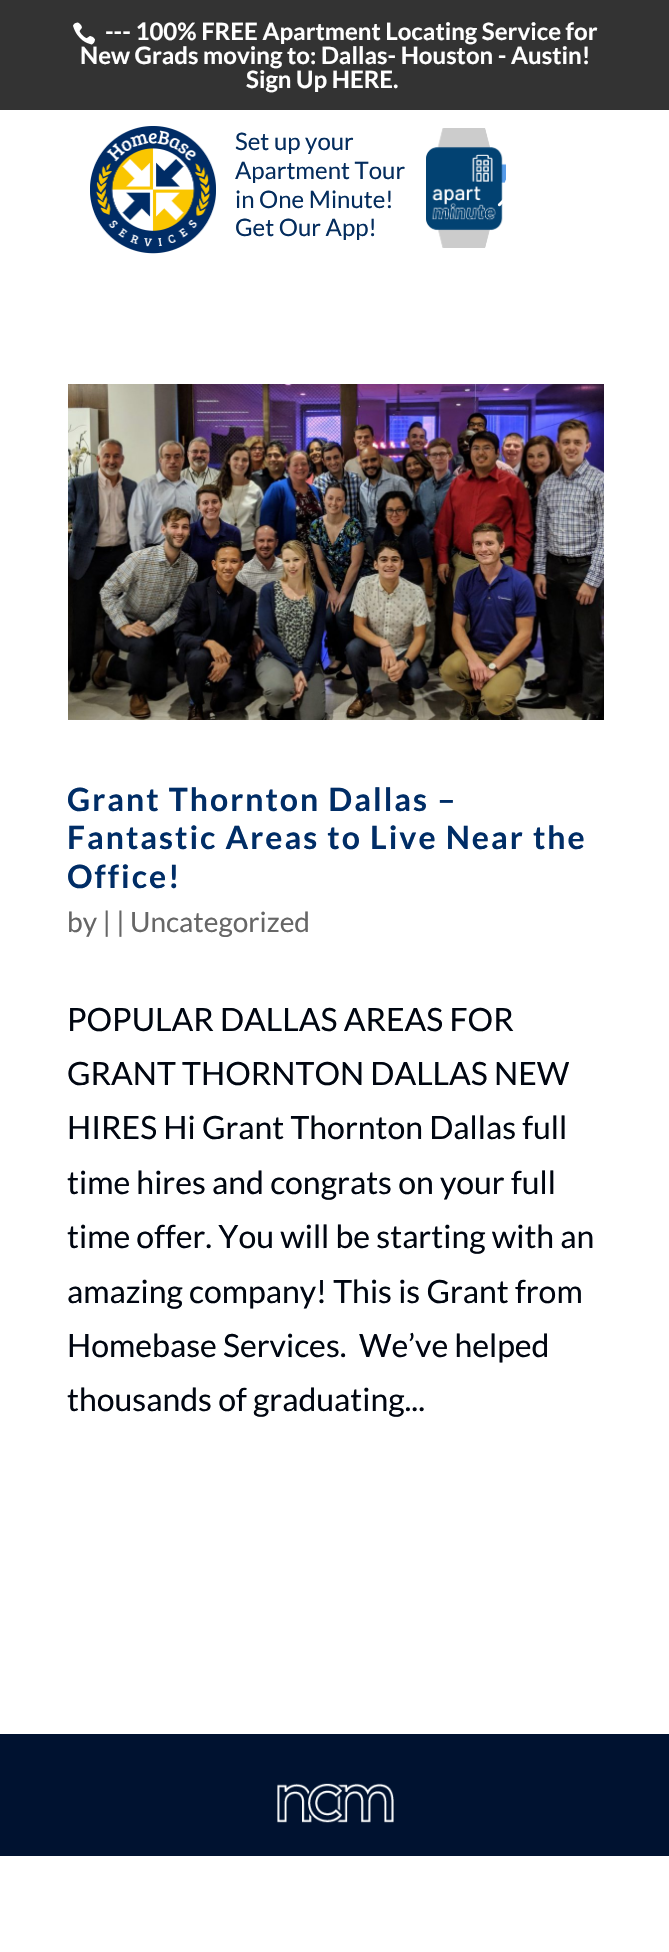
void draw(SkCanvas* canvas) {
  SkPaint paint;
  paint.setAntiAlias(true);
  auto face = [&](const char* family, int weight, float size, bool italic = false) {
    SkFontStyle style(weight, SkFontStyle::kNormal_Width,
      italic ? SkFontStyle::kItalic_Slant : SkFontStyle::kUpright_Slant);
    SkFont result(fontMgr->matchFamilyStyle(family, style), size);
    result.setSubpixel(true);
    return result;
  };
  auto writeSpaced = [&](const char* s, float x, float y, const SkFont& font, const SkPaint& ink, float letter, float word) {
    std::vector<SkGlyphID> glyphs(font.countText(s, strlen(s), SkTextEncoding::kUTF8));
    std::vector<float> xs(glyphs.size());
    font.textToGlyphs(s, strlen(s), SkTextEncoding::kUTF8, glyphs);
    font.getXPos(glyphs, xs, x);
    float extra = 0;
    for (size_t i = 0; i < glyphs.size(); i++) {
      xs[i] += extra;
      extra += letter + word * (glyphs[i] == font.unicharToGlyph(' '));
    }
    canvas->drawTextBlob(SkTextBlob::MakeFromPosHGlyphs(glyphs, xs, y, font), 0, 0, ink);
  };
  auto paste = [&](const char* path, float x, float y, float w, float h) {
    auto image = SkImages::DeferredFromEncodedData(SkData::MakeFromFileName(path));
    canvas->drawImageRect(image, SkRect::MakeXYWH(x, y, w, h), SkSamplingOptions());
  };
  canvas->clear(0xffffffff);
  paint.setColor(0xff333333);
  canvas->drawRect(SkRect::MakeXYWH(0, 0, 669, 110), paint);
  paste("img/1.png", 73, 22, 22, 23);
  paste("img/2.png", 90, 126, 126, 128);
  paste("img/3.png", 426, 128, 80, 120);
  paste("img/4.png", 497, 179, 9, 28);
  paste("img/5.png", 68, 384, 536, 336);
  paint.setColor(0xff001230);
  canvas->drawRect(SkRect::MakeXYWH(0, 1734, 669, 122), paint);
  paste("img/6.png", 277, 1783, 117, 40);
  auto f0 = face("Lato", 700, 24);
  paint.setColor(0xffffffff);
  {
    const struct { const char* s; float x, y; } items[] = {
      {"--- 100% FREE Apartment Locating Service for", 105, 40},
      {"New Grads moving to: Dallas- Houston - Austin!", 80, 64},
      {"Sign Up HERE.", 246, 88},
    };
    for (auto [s, x, y] : items) {
      canvas->drawString(s, x, y, f0, paint);
    }
  }
  auto f1 = face("Lato", 400, 24);
  paint.setColor(0xff042d5e);
  {
    const struct { const char* s; float x, y; } items[] = {
      {"Set up your", 235, 150},
      {"Apartment Tour", 235, 179},
      {"in One Minute!", 235, 208},
      {"Get Our App!", 235, 236},
    };
    for (auto [s, x, y] : items) {
      canvas->drawString(s, x, y, f1, paint);
    }
  }
  auto f2 = face("Lato", 700, 32);
  paint.setColor(0xff002d66);
  {
    const struct { const char* s; float x, y; } items[] = {
      {"Grant Thornton Dallas –", 67, 811},
      {"Fantastic Areas to Live Near the", 67, 849},
      {"Office!", 67, 888},
    };
    for (auto [s, x, y] : items) {
      writeSpaced(s, x, y, f2, paint, 2, 0);
    }
  }
  auto f3 = face("Lato", 400, 28);
  paint.setColor(0xff666666);
  canvas->drawString("by | | Uncategorized", 67, 932, f3, paint);
  auto f4 = face("Lato", 400, 32);
  paint.setColor(0xff000611);
  {
    const struct { const char* s; float x, y; } items[] = {
      {"POPULAR DALLAS AREAS FOR", 67, 1031},
      {"GRANT THORNTON DALLAS NEW", 67, 1085},
      {"HIRES Hi Grant Thornton Dallas full", 67, 1139},
      {"time hires and congrats on your full", 67, 1194},
      {"time offer. You will be starting with an", 67, 1248},
      {"amazing company! This is Grant from", 67, 1303},
      {"Homebase Services.  We’ve helped", 67, 1357},
      {"thousands of graduating...", 67, 1411},
    };
    for (auto [s, x, y] : items) {
      canvas->drawString(s, x, y, f4, paint);
    }
  }
}
